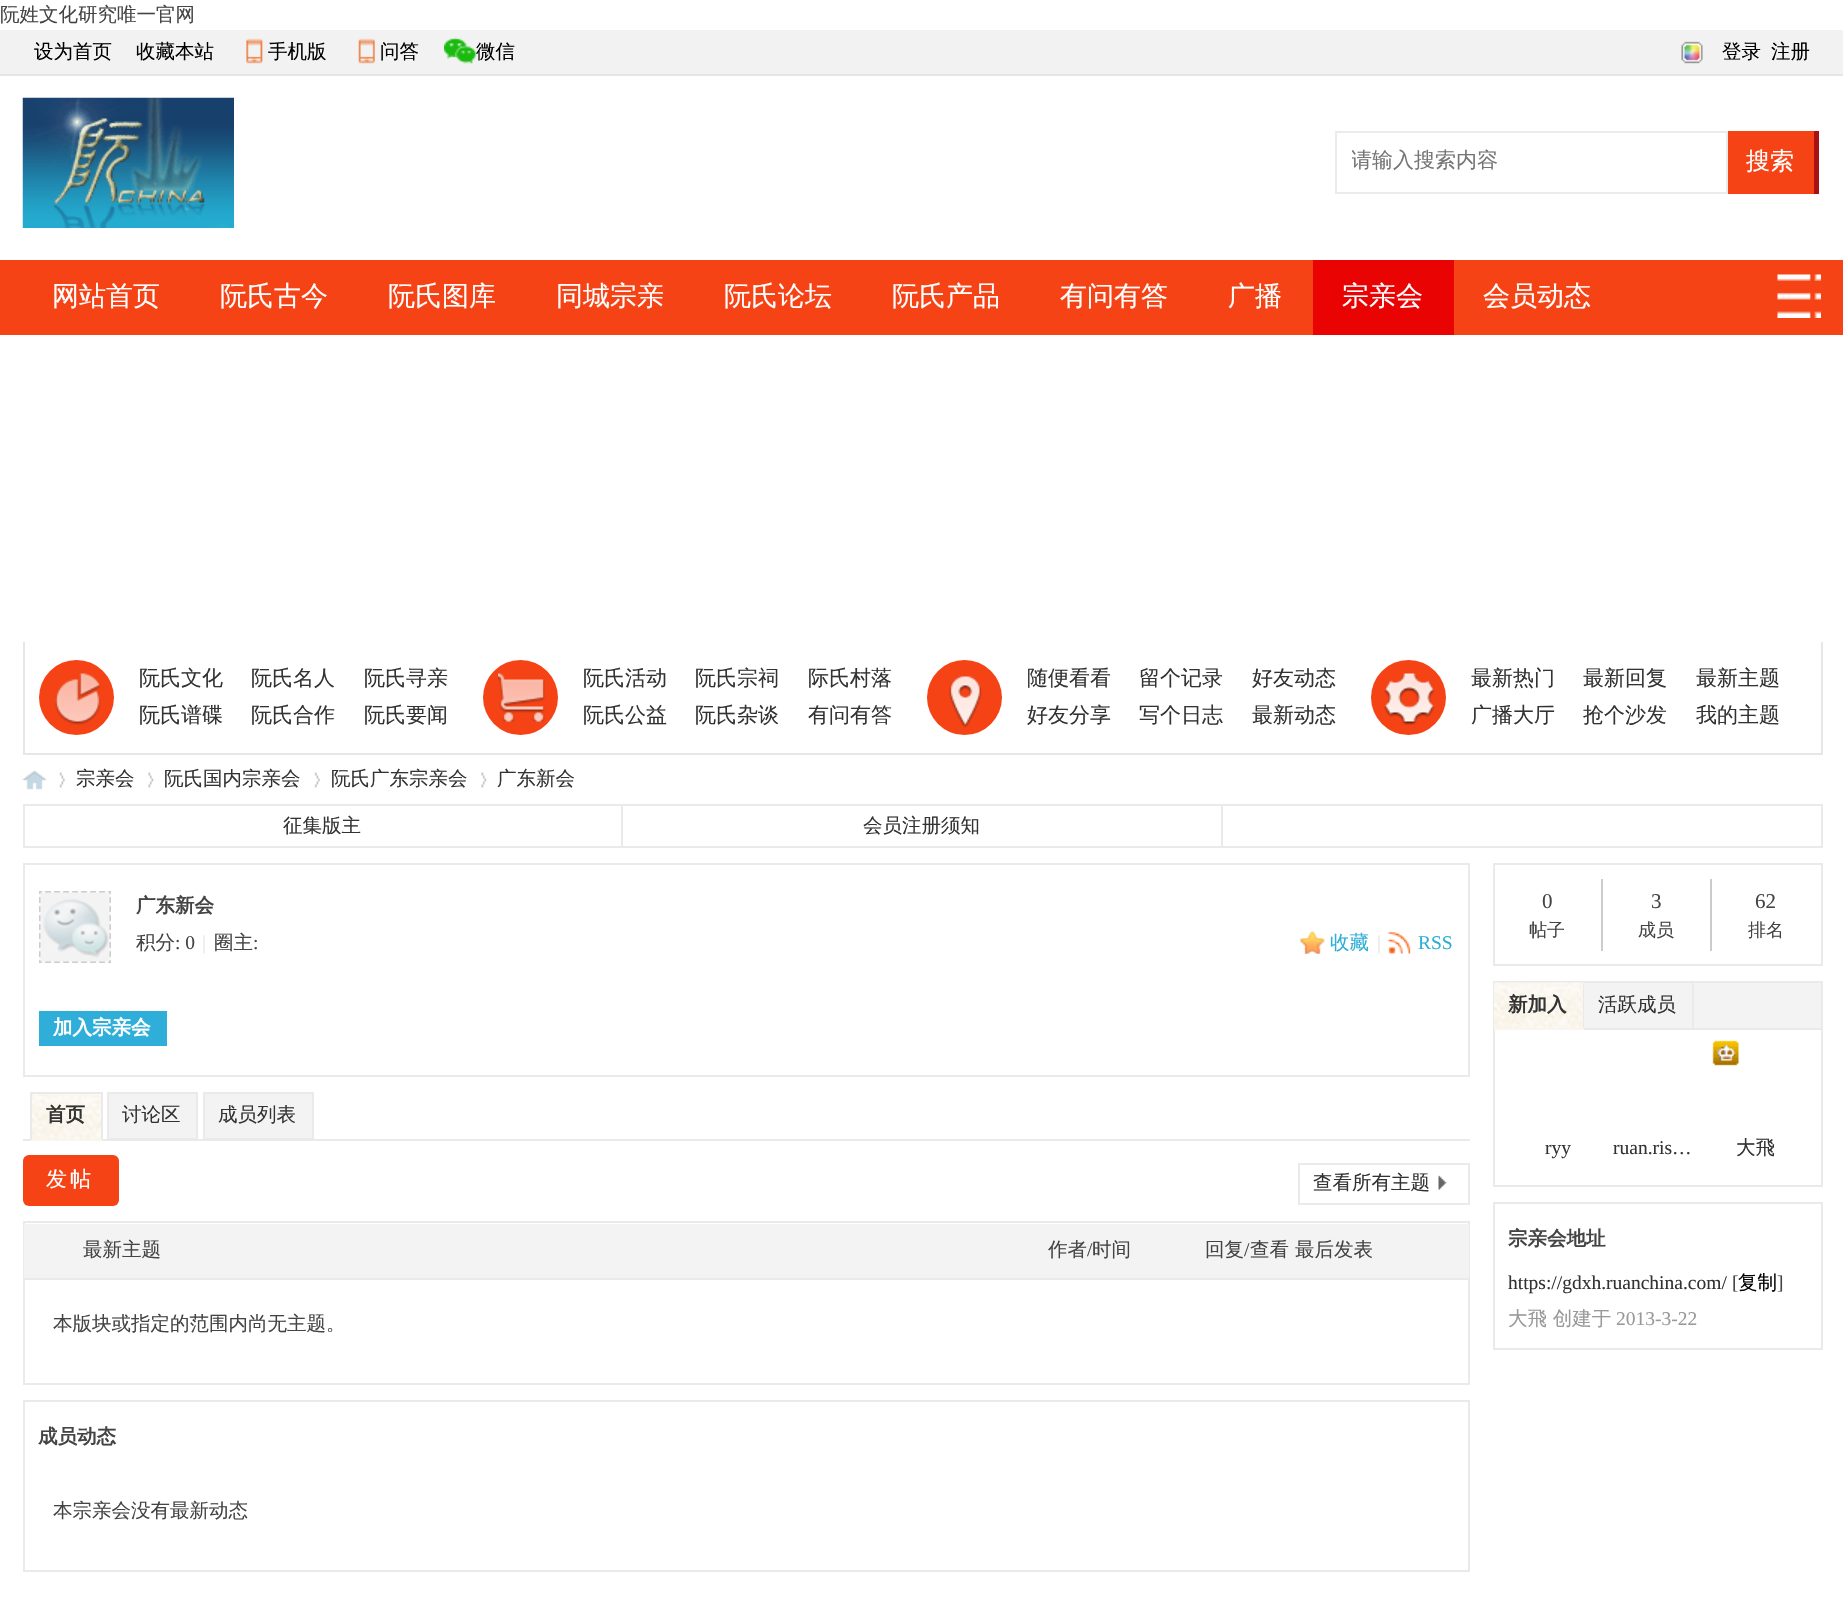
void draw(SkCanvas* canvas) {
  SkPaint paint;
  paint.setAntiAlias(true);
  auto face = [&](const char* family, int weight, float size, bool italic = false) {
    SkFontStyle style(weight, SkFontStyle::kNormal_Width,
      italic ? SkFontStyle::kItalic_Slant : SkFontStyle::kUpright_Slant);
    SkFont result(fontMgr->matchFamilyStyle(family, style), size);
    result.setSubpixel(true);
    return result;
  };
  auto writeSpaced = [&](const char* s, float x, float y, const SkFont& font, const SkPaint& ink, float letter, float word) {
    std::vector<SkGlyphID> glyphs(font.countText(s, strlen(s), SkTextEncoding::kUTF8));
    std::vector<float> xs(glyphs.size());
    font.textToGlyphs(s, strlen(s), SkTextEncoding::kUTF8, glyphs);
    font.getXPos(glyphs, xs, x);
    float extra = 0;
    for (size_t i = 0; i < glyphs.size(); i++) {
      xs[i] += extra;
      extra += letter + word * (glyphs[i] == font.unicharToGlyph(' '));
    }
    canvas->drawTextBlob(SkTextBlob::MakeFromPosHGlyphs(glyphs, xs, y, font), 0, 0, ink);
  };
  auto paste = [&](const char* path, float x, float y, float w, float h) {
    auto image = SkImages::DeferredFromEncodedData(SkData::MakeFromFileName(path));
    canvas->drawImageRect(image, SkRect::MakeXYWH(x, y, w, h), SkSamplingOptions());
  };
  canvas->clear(0xffffffff);
  paint.setColor(0xfff2f2f2);
  canvas->drawRect(SkRect::MakeXYWH(0, 30, 1843, 44), paint);
  paint.setColor(0xffe5e5e5);
  canvas->drawRect(SkRect::MakeXYWH(0, 74, 1843, 2), paint);
  paste("img/1.png", 246, 38, 17, 26);
  paste("img/2.png", 358, 38, 17, 26);
  paste("img/3.png", 444, 37, 32, 27);
  paste("img/4.png", 1681, 41, 22, 23);
  paste("img/5.png", 22, 97, 212, 131);
  paint.setStroke(true);
  paint.setStrokeWidth(2);
  paint.setColor(0xffebebeb);
  canvas->drawRect(SkRect::MakeXYWH(1336, 132, 391, 61), paint);
  paint.setStroke(false);
  {
    const struct { float x, y, w, h; SkColor color; } items[] = {
      {1728, 131, 86, 63, 0xfff54316},
      {1814, 131, 5, 63, 0xffa91214},
      {0, 260, 1843, 75, 0xfff54316},
      {1313, 260, 141, 75, 0xffea0303},
    };
    for (auto [x, y, w, h, color] : items) {
      paint.setColor(color);
      canvas->drawRect(SkRect::MakeXYWH(x, y, w, h), paint);
    }
  }
  paste("img/6.png", 1777, 274, 44, 44);
  {
    const struct { float x, y, w, h; SkColor color; } items[] = {
      {1821, 642, 2, 113, 0xffe7e7e7},
      {23, 753, 1800, 2, 0xffe7e7e7},
      {23, 642, 2, 113, 0xffe7e7e7},
    };
    for (auto [x, y, w, h, color] : items) {
      paint.setColor(color);
      canvas->drawRect(SkRect::MakeXYWH(x, y, w, h), paint);
    }
  }
  paint.setColor(0xfff54316);
  canvas->drawCircle(76.5f, 697.5f, 37.5f, paint);
  paste("img/7.png", 55, 673, 46, 52);
  canvas->drawCircle(520.5f, 697.5f, 37.5f, paint);
  paste("img/8.png", 498, 673, 47, 49);
  canvas->drawCircle(964.5f, 697.5f, 37.5f, paint);
  paste("img/9.png", 949, 676, 33, 52);
  canvas->drawCircle(1408.5f, 697.5f, 37.5f, paint);
  paste("img/10.png", 1384, 673, 51, 52);
  paste("img/11.png", 22, 770, 25, 20);
  paste("img/12.png", 59, 772, 6, 16);
  paste("img/13.png", 148, 772, 6, 16);
  paste("img/14.png", 314, 772, 6, 16);
  paste("img/13.png", 481, 772, 6, 16);
  {
    const struct { float x, y, w, h; SkColor color; } items[] = {
      {1221, 804, 602, 2, 0xffeaeaea},
      {1821, 804, 2, 44, 0xffeaeaea},
      {1221, 846, 602, 2, 0xffeaeaea},
      {1221, 804, 2, 44, 0xffeaeaea},
      {621, 804, 602, 2, 0xffeaeaea},
      {621, 846, 602, 2, 0xffeaeaea},
      {621, 804, 2, 44, 0xffeaeaea},
      {23, 804, 600, 2, 0xffeaeaea},
      {23, 846, 600, 2, 0xffeaeaea},
      {23, 804, 2, 44, 0xffeaeaea},
    };
    for (auto [x, y, w, h, color] : items) {
      paint.setColor(color);
      canvas->drawRect(SkRect::MakeXYWH(x, y, w, h), paint);
    }
  }
  paint.setStroke(true);
  canvas->drawRect(SkRect::MakeXYWH(24, 864, 1445, 212), paint);
  paste("img/15.png", 39, 891, 72, 72);
  paste("img/16.png", 1300, 931, 25, 23);
  paste("img/17.png", 1387, 932, 24, 22);
  paint.setStroke(false);
  paint.setColor(0xff2eaed8);
  canvas->drawRect(SkRect::MakeXYWH(39, 1011, 128, 35), paint);
  paint.setColor(0xffeaeaea);
  canvas->drawRect(SkRect::MakeXYWH(23, 1139, 1447, 2), paint);
  paste("img/18.png", 32, 1094, 69, 45);
  {
    const struct { float x, y, w, h; SkColor color; } items[] = {
      {30, 1092, 72, 2, 0xffeaeaea},
      {101, 1092, 2, 48, 0xffeaeaea},
      {30, 1139, 72, 2, 0xfffaf6ed},
      {30, 1092, 2, 48, 0xffeaeaea},
    };
    for (auto [x, y, w, h, color] : items) {
      paint.setColor(color);
      canvas->drawRect(SkRect::MakeXYWH(x, y, w, h), paint);
    }
  }
  paint.setColor(0xfff3f3f3);
  canvas->drawRect(SkRect::MakeXYWH(108, 1093, 89, 46), paint);
  paint.setStroke(true);
  paint.setColor(0xffeaeaea);
  canvas->drawRect(SkRect::MakeXYWH(108, 1093, 89, 46), paint);
  paint.setStroke(false);
  paint.setColor(0xfff3f3f3);
  canvas->drawRect(SkRect::MakeXYWH(204, 1093, 109, 46), paint);
  paint.setStroke(true);
  paint.setColor(0xffeaeaea);
  canvas->drawRect(SkRect::MakeXYWH(204, 1093, 109, 46), paint);
  paint.setStroke(false);
  paint.setColor(0xfff54316);
  canvas->drawRoundRect(SkRect::MakeXYWH(23, 1155, 96, 51), 6, 6, paint);
  paste("img/19.png", 1438, 1175, 9, 15);
  paint.setStroke(true);
  paint.setColor(0xffeaeaea);
  canvas->drawRect(SkRect::MakeXYWH(1299, 1164, 170, 40), paint);
  canvas->drawRect(SkRect::MakeXYWH(24, 1222, 1445, 162), paint);
  paint.setStroke(false);
  paint.setColor(0xfff3f3f3);
  canvas->drawRect(SkRect::MakeXYWH(24, 1224, 1445, 54), paint);
  paint.setColor(0xffeaeaea);
  canvas->drawRect(SkRect::MakeXYWH(24, 1278, 1445, 2), paint);
  paint.setStroke(true);
  canvas->drawRect(SkRect::MakeXYWH(24, 1401, 1445, 170), paint);
  canvas->drawRect(SkRect::MakeXYWH(1494, 864, 328, 101), paint);
  paint.setStroke(false);
  paint.setColor(0xffcccccc);
  canvas->drawRect(SkRect::MakeXYWH(1601, 879, 2, 72), paint);
  canvas->drawRect(SkRect::MakeXYWH(1710, 879, 2, 72), paint);
  paint.setStroke(true);
  paint.setColor(0xffeaeaea);
  canvas->drawRect(SkRect::MakeXYWH(1494, 982, 328, 204), paint);
  paint.setStroke(false);
  paint.setColor(0xfff3f3f3);
  canvas->drawRect(SkRect::MakeXYWH(1694, 983, 127, 45), paint);
  paint.setColor(0xffeaeaea);
  canvas->drawRect(SkRect::MakeXYWH(1694, 1028, 127, 2), paint);
  paste("img/20.png", 1494, 982, 90, 46);
  {
    const struct { float x, y, w, h; SkColor color; } items[] = {
      {1583, 983, 1, 46, 0xffeaeaea},
      {1494, 1028, 90, 2, 0xfffaf6ed},
      {1584, 983, 108, 45, 0xfff3f3f3},
      {1692, 983, 2, 46, 0xffeaeaea},
      {1584, 1028, 110, 2, 0xffeaeaea},
    };
    for (auto [x, y, w, h, color] : items) {
      paint.setColor(color);
      canvas->drawRect(SkRect::MakeXYWH(x, y, w, h), paint);
    }
  }
  paste("img/21.png", 1712, 1040, 27, 26);
  paint.setStroke(true);
  canvas->drawRect(SkRect::MakeXYWH(1494, 1203, 328, 146), paint);
  auto f0 = face("WenQuanYi Zen Hei", 500, 19.5f);
  paint.setStroke(false);
  paint.setColor(0xff444444);
  canvas->drawString("阮姓文化研究唯一官网", 0, 21, f0, paint);
  paint.setColor(0xff000000);
  {
    const struct { const char* s; float x, y; } items[] = {
      {"设为首页", 34, 58},
      {"收藏本站", 136, 58},
      {"手机版", 268, 58},
      {"问答", 380, 58},
      {"微信", 476, 58},
      {"登录", 1722, 58},
      {"注册", 1771, 58},
    };
    for (auto [s, x, y] : items) {
      canvas->drawString(s, x, y, f0, paint);
    }
  }
  canvas->save();
  canvas->clipRect(SkRect::MakeXYWH(1352, 149, 375, 27));
  auto f1 = face("WenQuanYi Zen Hei", 500, 21);
  paint.setColor(0xff757575);
  canvas->drawString("请输入搜索内容", 1351, 167, f1, paint);
  canvas->restore();
  auto f2 = face("WenQuanYi Zen Hei", 500, 24);
  paint.setColor(0xffffffff);
  canvas->drawString("搜索", 1746, 169, f2, paint);
  auto f3 = face("WenQuanYi Zen Hei", 500, 27);
  {
    const struct { const char* s; float x, y; } items[] = {
      {"网站首页", 52, 305},
      {"阮氏古今", 220, 305},
      {"阮氏图库", 388, 305},
      {"同城宗亲", 556, 305},
      {"阮氏论坛", 724, 305},
      {"阮氏产品", 892, 305},
      {"有问有答", 1060, 305},
      {"广播", 1228, 305},
      {"宗亲会", 1342, 305},
      {"会员动态", 1483, 305},
    };
    for (auto [s, x, y] : items) {
      canvas->drawString(s, x, y, f3, paint);
    }
  }
  paint.setColor(0xff333333);
  {
    const struct { const char* s; float x, y; } items[] = {
      {"阮氏文化", 139, 685},
      {"阮氏名人", 251, 685},
      {"阮氏寻亲", 364, 685},
      {"阮氏谱碟", 139, 722},
      {"阮氏合作", 251, 722},
      {"阮氏要闻", 364, 722},
      {"阮氏活动", 583, 685},
      {"阮氏宗祠", 695, 685},
      {"际氏村落", 808, 685},
      {"阮氏公益", 583, 722},
      {"阮氏杂谈", 695, 722},
      {"有问有答", 808, 722},
      {"随便看看", 1027, 685},
      {"留个记录", 1139, 685},
      {"好友动态", 1252, 685},
      {"好友分享", 1027, 722},
      {"写个日志", 1139, 722},
      {"最新动态", 1252, 722},
      {"最新热门", 1471, 685},
      {"最新回复", 1583, 685},
      {"最新主题", 1696, 685},
      {"广播大厅", 1471, 722},
      {"抢个沙发", 1583, 722},
      {"我的主题", 1696, 722},
    };
    for (auto [s, x, y] : items) {
      canvas->drawString(s, x, y, f1, paint);
    }
  }
  {
    const struct { const char* s; float x, y; } items[] = {
      {"宗亲会", 76, 785},
      {"阮氏国内宗亲会", 164, 785},
      {"阮氏广东宗亲会", 331, 785},
      {"广东新会", 497, 785},
      {"征集版主", 283, 832},
      {"会员注册须知", 863, 832},
    };
    for (auto [s, x, y] : items) {
      canvas->drawString(s, x, y, f0, paint);
    }
  }
  auto f4 = face("WenQuanYi Zen Hei", 700, 19.5f);
  paint.setColor(0xff444444);
  canvas->drawString("广东新会", 136, 912, f4, paint);
  canvas->drawString("积分", 136, 949, f0, paint);
  auto f5 = face("Liberation Serif", 400, 19.5f);
  canvas->drawString(": 0", 175, 949, f5, paint);
  paint.setColor(0xffe7e7e7);
  canvas->drawString("|", 202, 949, f5, paint);
  paint.setColor(0xff444444);
  canvas->drawString("圈主", 214, 949, f0, paint);
  canvas->drawString(":", 253, 949, f5, paint);
  paint.setColor(0xff2eaed8);
  canvas->drawString("收藏", 1330, 949, f0, paint);
  paint.setColor(0xffe7e7e7);
  canvas->drawString("|", 1377, 949, f5, paint);
  paint.setColor(0xff2eaed8);
  canvas->drawString("RSS", 1418, 949, f5, paint);
  paint.setColor(0xffffffff);
  canvas->drawString("加入宗亲会", 53, 1034, f4, paint);
  paint.setColor(0xff333333);
  canvas->drawString("首页", 46, 1121, f4, paint);
  canvas->drawString("讨论区", 122, 1121, f0, paint);
  canvas->drawString("成员列表", 218, 1121, f0, paint);
  paint.setColor(0xffffffff);
  writeSpaced("发帖", 46, 1186, f1, paint, 3, 0);
  paint.setColor(0xff333333);
  canvas->drawString("查看所有主题", 1313, 1189, f0, paint);
  paint.setColor(0xff444444);
  canvas->drawString("最新主题", 83, 1256, f0, paint);
  canvas->drawString("作者", 1048, 1256, f0, paint);
  canvas->drawString("/", 1087, 1256, f5, paint);
  canvas->drawString("时间", 1092, 1256, f0, paint);
  canvas->drawString("回复", 1205, 1256, f0, paint);
  canvas->drawString("/", 1244, 1256, f5, paint);
  {
    const struct { const char* s; float x, y; } items[] = {
      {"查看", 1250, 1256},
      {"最后发表", 1295, 1256},
      {"本版块或指定的范围内尚无主题。", 53, 1330},
    };
    for (auto [s, x, y] : items) {
      canvas->drawString(s, x, y, f0, paint);
    }
  }
  canvas->drawString("成员动态", 38, 1443, f4, paint);
  canvas->drawString("本宗亲会没有最新动态", 53, 1517, f0, paint);
  auto f6 = face("Liberation Serif", 400, 21);
  canvas->drawString("0", 1542, 908, f6, paint);
  auto f7 = face("WenQuanYi Zen Hei", 500, 18);
  canvas->drawString("帖子", 1529, 936, f7, paint);
  canvas->drawString("3", 1651, 908, f6, paint);
  canvas->drawString("成员", 1638, 936, f7, paint);
  canvas->drawString("62", 1755, 908, f6, paint);
  canvas->drawString("排名", 1748, 936, f7, paint);
  paint.setColor(0xff333333);
  canvas->drawString("新加入", 1508, 1011, f4, paint);
  canvas->drawString("活跃成员", 1598, 1011, f0, paint);
  canvas->drawString("ryy", 1545, 1154, f5, paint);
  canvas->drawString("ruan.ris…", 1613, 1154, f5, paint);
  canvas->drawString("大飛", 1736, 1154, f0, paint);
  paint.setColor(0xff444444);
  canvas->drawString("宗亲会地址", 1508, 1245, f4, paint);
  paint.setColor(0xff333333);
  canvas->drawString("https://gdxh.ruanchina.com/", 1508, 1289, f5, paint);
  paint.setColor(0xff444444);
  canvas->drawString("[", 1732, 1289, f5, paint);
  paint.setColor(0xff000000);
  canvas->drawString("复制", 1738, 1289, f0, paint);
  paint.setColor(0xff444444);
  canvas->drawString("]", 1777, 1289, f5, paint);
  paint.setColor(0xff999999);
  canvas->drawString("大飛 创建于", 1508, 1325, f0, paint);
  canvas->drawString("2013-3-22", 1616, 1325, f5, paint);
}
